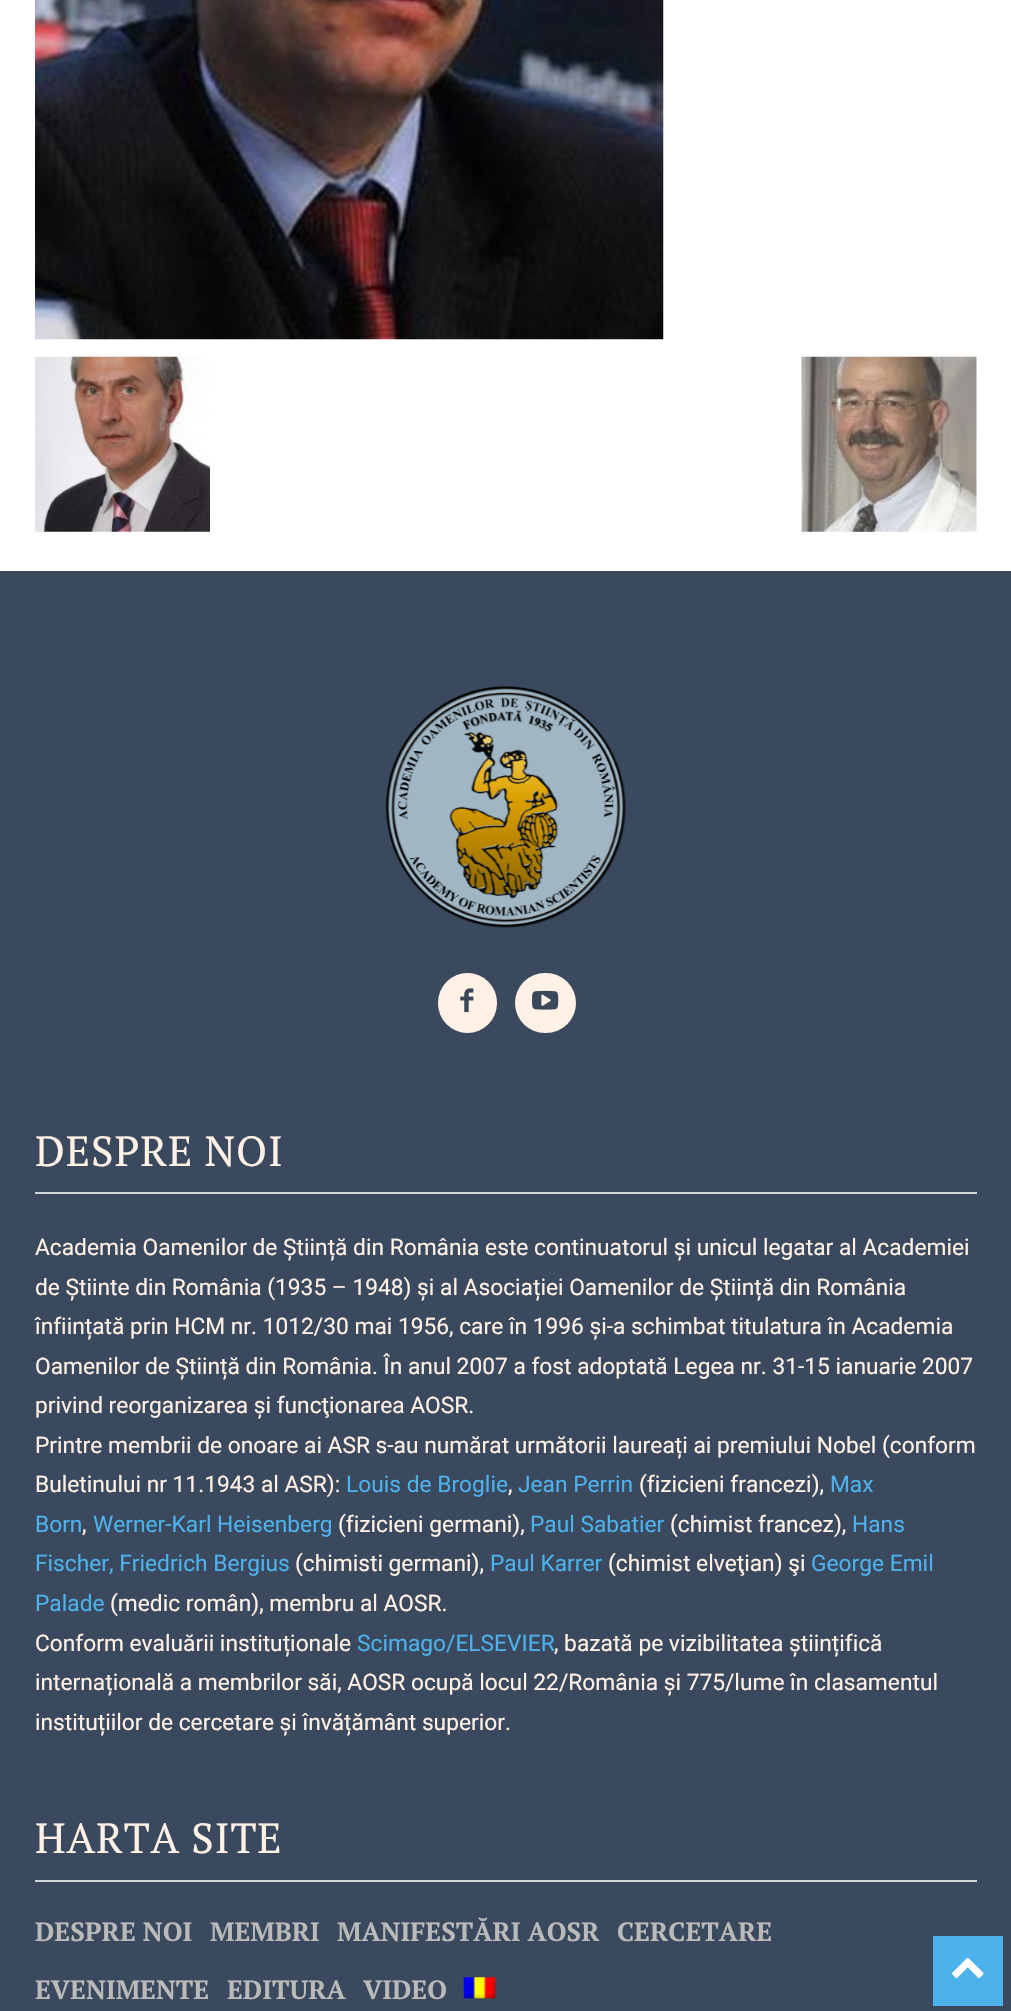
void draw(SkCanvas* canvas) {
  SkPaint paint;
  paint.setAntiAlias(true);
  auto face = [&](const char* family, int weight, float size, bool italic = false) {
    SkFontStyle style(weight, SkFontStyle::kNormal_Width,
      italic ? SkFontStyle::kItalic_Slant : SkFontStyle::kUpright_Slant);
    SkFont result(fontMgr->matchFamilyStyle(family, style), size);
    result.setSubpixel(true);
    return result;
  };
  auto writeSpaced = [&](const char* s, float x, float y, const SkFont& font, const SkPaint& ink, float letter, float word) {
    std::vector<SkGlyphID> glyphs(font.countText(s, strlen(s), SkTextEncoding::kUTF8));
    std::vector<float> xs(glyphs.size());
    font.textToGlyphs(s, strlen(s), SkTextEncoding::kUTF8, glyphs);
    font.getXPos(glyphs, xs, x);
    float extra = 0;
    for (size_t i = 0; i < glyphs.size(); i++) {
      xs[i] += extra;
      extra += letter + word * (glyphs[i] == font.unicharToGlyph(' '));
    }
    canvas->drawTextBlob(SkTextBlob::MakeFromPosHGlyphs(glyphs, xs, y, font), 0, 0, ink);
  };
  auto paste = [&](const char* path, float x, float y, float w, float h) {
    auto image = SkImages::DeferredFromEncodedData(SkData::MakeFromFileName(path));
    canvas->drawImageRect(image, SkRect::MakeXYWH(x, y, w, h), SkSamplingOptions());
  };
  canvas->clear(0xffffffff);
  paste("img/1.png", 35, 0, 629, 340);
  paste("img/2.png", 35, 356, 175, 176);
  paste("img/3.png", 801, 356, 176, 176);
  paint.setColor(0xff3b495e);
  canvas->drawRect(SkRect::MakeXYWH(0, 571, 1011, 1440), paint);
  paste("img/4.png", 385, 686, 242, 242);
  paint.setColor(0xfffff1e5);
  canvas->drawRoundRect(SkRect::MakeXYWH(438, 973, 59, 60), 29.5f, 29.5f, paint);
  paste("img/5.png", 460, 988, 14, 25);
  canvas->drawRoundRect(SkRect::MakeXYWH(515, 973, 61, 60), 30, 30, paint);
  paste("img/6.png", 532, 990, 27, 20);
  paint.setColor(0xffd2d6dd);
  canvas->drawRect(SkRect::MakeXYWH(35, 1192, 942, 2), paint);
  canvas->drawRect(SkRect::MakeXYWH(35, 1880, 942, 2), paint);
  paste("img/7.png", 463, 1977, 33, 22);
  paint.setColor(0xff4db2ec);
  canvas->drawRect(SkRect::MakeXYWH(933, 1936, 70, 70), paint);
  paste("img/8.png", 952, 1957, 32, 21);
  auto f0 = face("PT Serif", 400, 42);
  paint.setColor(0xfffff1e5);
  writeSpaced("DESPRE NOI", 35, 1166, f0, paint, 0.9f, 0);
  auto f1 = face("Roboto", 400, 22.75f);
  {
    const struct { const char* s; float x, y; } items[] = {
      {"Academia Oamenilor de Știință din România este continuatorul și unicul legatar al Academiei", 35, 1255},
      {"de Știinte din România (1935 – 1948) și al Asociației Oamenilor de Știință din România", 35, 1295},
      {"înființată prin HCM nr. 1012/30 mai 1956, care în 1996 și-a schimbat titulatura în Academia", 35, 1334},
      {"Oamenilor de Știință din România. În anul 2007 a fost adoptată Legea nr. 31-15 ianuarie 2007", 35, 1374},
      {"privind reorganizarea și funcţionarea AOSR.", 35, 1413},
      {"Printre membrii de onoare ai ASR s-au numărat următorii laureați ai premiului Nobel (conform", 35, 1453},
      {"Buletinului nr 11.1943 al ASR):", 35, 1492},
    };
    for (auto [s, x, y] : items) {
      canvas->drawString(s, x, y, f1, paint);
    }
  }
  paint.setColor(0xff4db2ec);
  canvas->drawString("Louis de Broglie", 346, 1492, f1, paint);
  paint.setColor(0xfffff1e5);
  canvas->drawString(",", 508, 1492, f1, paint);
  paint.setColor(0xff4db2ec);
  canvas->drawString("Jean Perrin", 518, 1492, f1, paint);
  paint.setColor(0xfffff1e5);
  canvas->drawString("(fizicieni francezi),", 639, 1492, f1, paint);
  paint.setColor(0xff4db2ec);
  canvas->drawString("Max", 830, 1492, f1, paint);
  canvas->drawString("Born", 35, 1532, f1, paint);
  paint.setColor(0xfffff1e5);
  canvas->drawString(",", 82, 1532, f1, paint);
  paint.setColor(0xff4db2ec);
  canvas->drawString("Werner-Karl Heisenberg", 93, 1532, f1, paint);
  paint.setColor(0xfffff1e5);
  canvas->drawString("(fizicieni germani),", 338, 1532, f1, paint);
  paint.setColor(0xff4db2ec);
  canvas->drawString("Paul Sabatier", 530, 1532, f1, paint);
  paint.setColor(0xfffff1e5);
  canvas->drawString("(chimist francez),", 670, 1532, f1, paint);
  paint.setColor(0xff4db2ec);
  canvas->drawString("Hans", 852, 1532, f1, paint);
  canvas->drawString("Fischer, Friedrich Bergius", 35, 1571, f1, paint);
  paint.setColor(0xfffff1e5);
  canvas->drawString("(chimisti germani),", 295, 1571, f1, paint);
  paint.setColor(0xff4db2ec);
  canvas->drawString("Paul Karrer", 490, 1571, f1, paint);
  paint.setColor(0xfffff1e5);
  canvas->drawString("(chimist elveţian) şi", 608, 1571, f1, paint);
  paint.setColor(0xff4db2ec);
  canvas->drawString("George Emil", 811, 1571, f1, paint);
  canvas->drawString("Palade", 35, 1611, f1, paint);
  paint.setColor(0xfffff1e5);
  canvas->drawString("(medic român), membru al AOSR.", 110, 1611, f1, paint);
  canvas->drawString("Conform evaluării instituționale", 35, 1651, f1, paint);
  paint.setColor(0xff4db2ec);
  canvas->drawString("Scimago/ELSEVIER", 357, 1651, f1, paint);
  paint.setColor(0xfffff1e5);
  {
    const struct { const char* s; float x, y; } items[] = {
      {", bazată pe vizibilitatea științifică", 554, 1651},
      {"internațională a membrilor săi, AOSR ocupă locul 22/România și 775/lume în clasamentul", 35, 1690},
      {"instituțiilor de cercetare și învățământ superior.", 35, 1730},
    };
    for (auto [s, x, y] : items) {
      canvas->drawString(s, x, y, f1, paint);
    }
  }
  writeSpaced("HARTA SITE", 35, 1853, f0, paint, 0.9f, 0);
  auto f2 = face("PT Serif", 700, 26.25f);
  paint.setColor(0xffbababa);
  {
    const struct { const char* s; float x, y; } items[] = {
      {"DESPRE NOI", 35, 1941},
      {"MEMBRI", 210, 1941},
      {"MANIFESTĂRI AOSR", 337, 1941},
      {"CERCETARE", 617, 1941},
      {"EVENIMENTE", 35, 1999},
      {"EDITURA", 227, 1999},
      {"VIDEO", 363, 1999},
    };
    for (auto [s, x, y] : items) {
      canvas->drawString(s, x, y, f2, paint);
    }
  }
}
